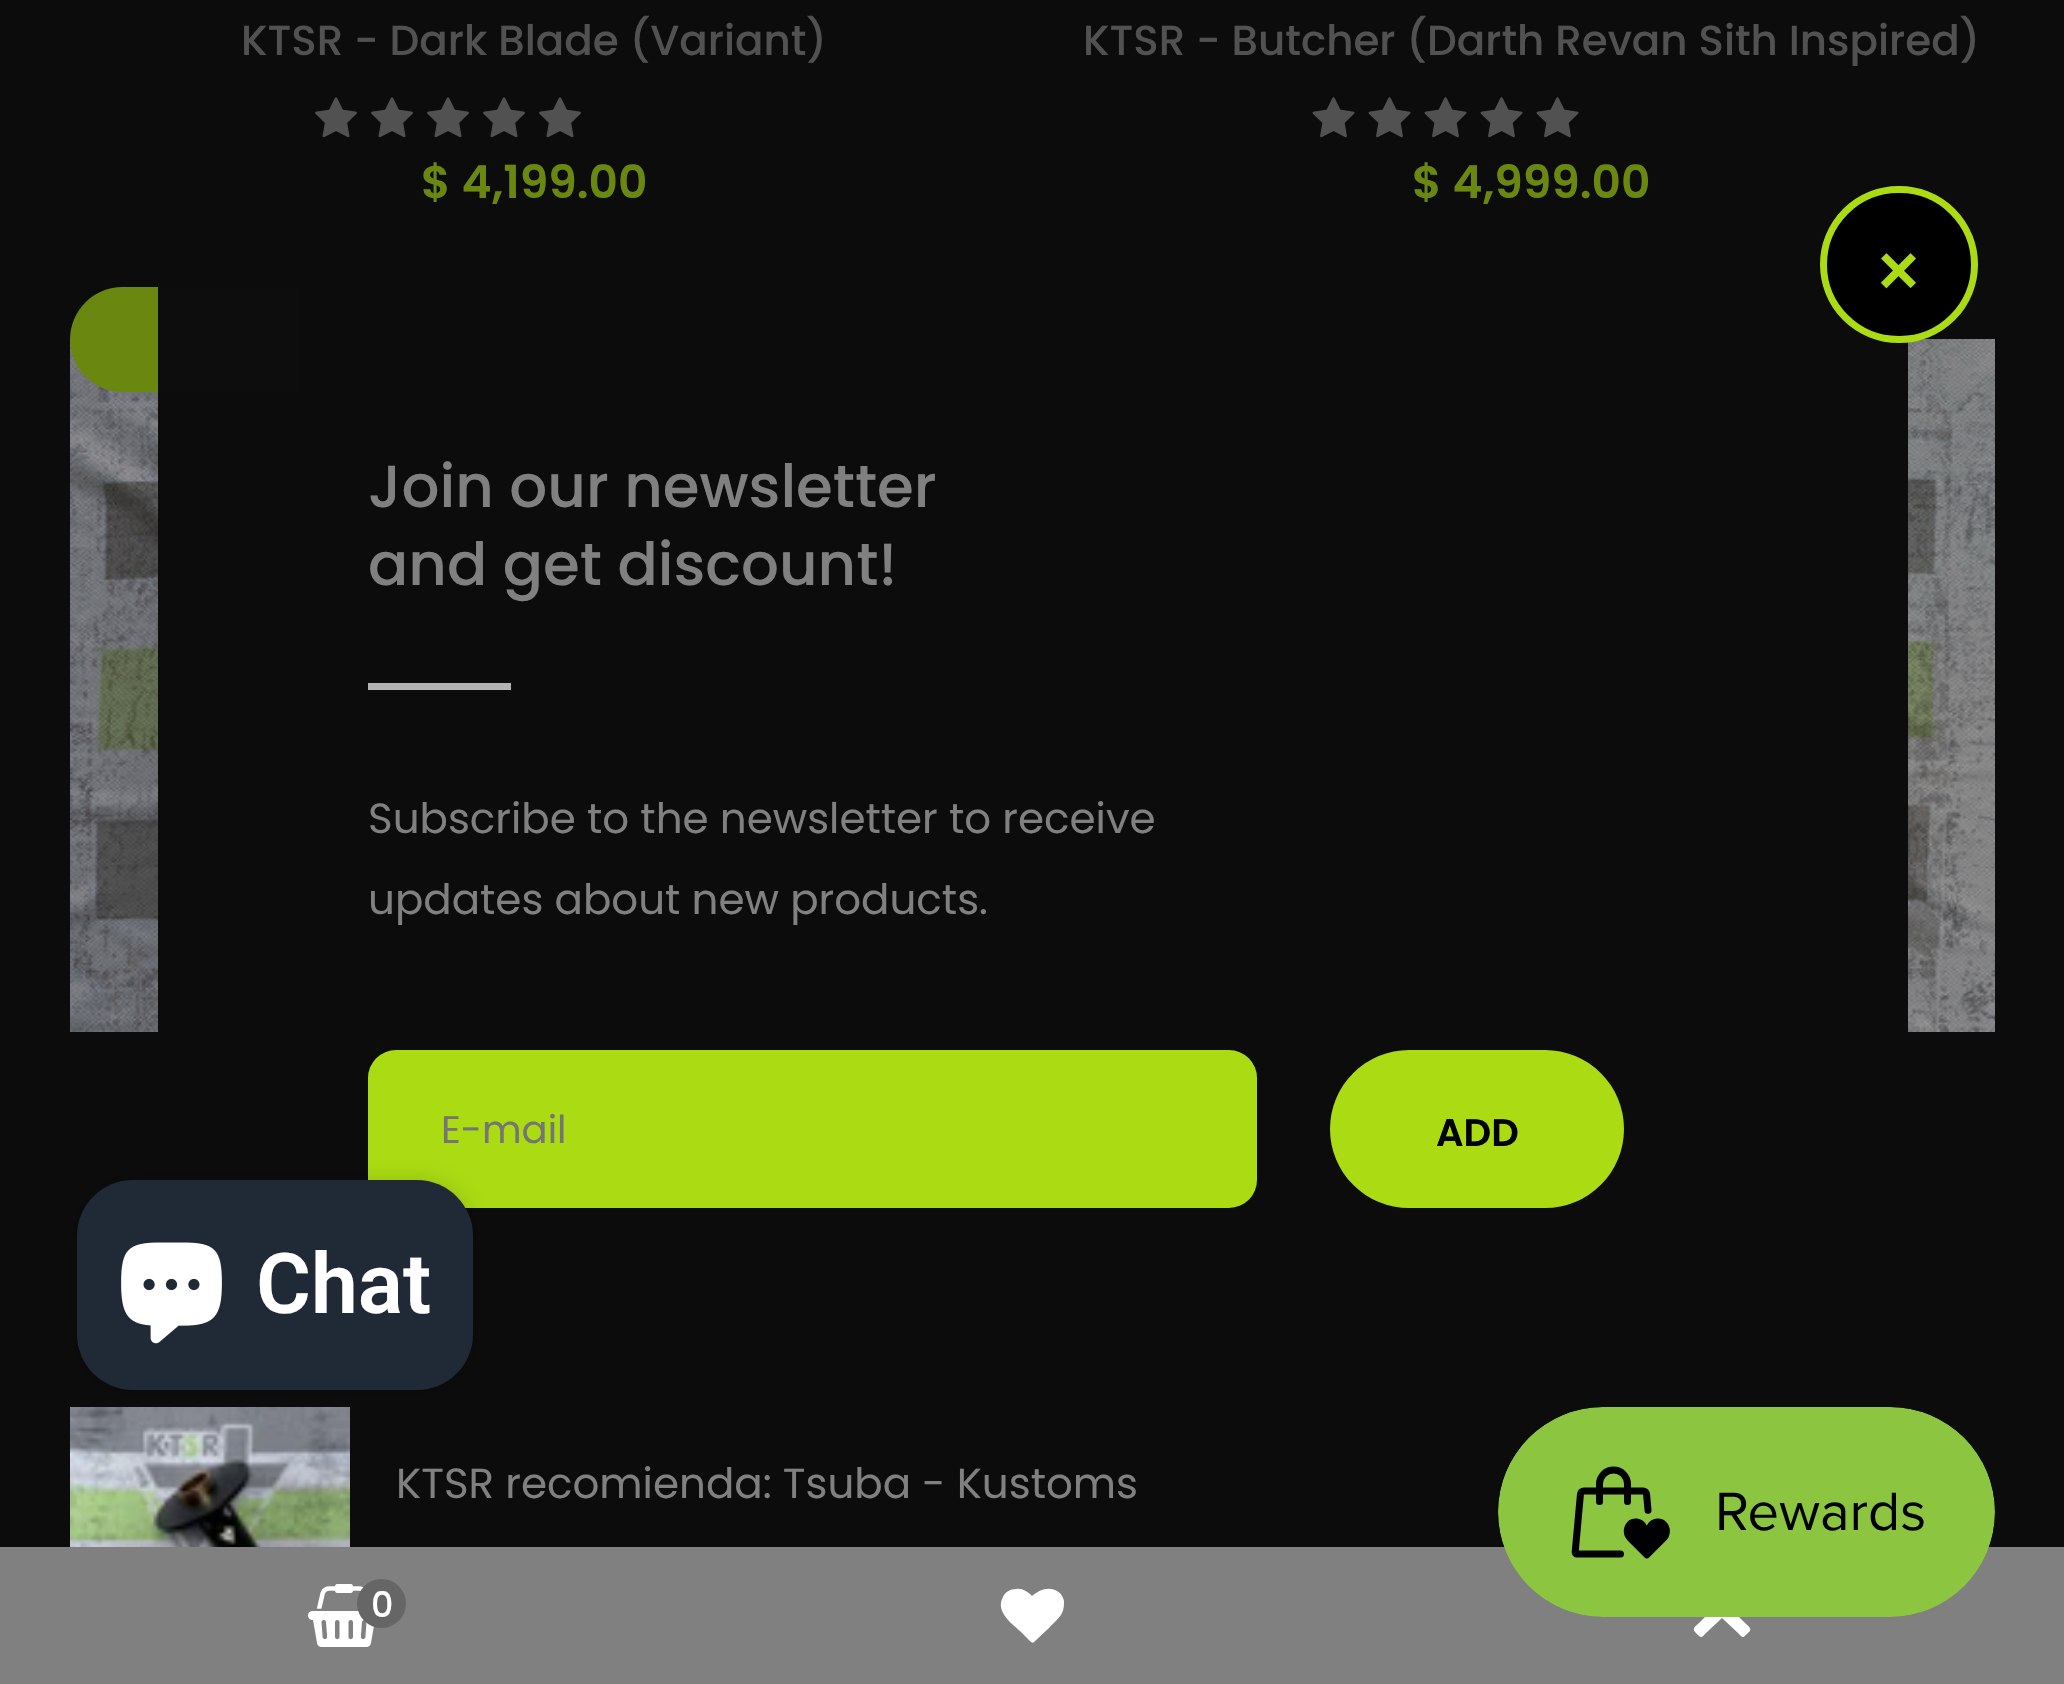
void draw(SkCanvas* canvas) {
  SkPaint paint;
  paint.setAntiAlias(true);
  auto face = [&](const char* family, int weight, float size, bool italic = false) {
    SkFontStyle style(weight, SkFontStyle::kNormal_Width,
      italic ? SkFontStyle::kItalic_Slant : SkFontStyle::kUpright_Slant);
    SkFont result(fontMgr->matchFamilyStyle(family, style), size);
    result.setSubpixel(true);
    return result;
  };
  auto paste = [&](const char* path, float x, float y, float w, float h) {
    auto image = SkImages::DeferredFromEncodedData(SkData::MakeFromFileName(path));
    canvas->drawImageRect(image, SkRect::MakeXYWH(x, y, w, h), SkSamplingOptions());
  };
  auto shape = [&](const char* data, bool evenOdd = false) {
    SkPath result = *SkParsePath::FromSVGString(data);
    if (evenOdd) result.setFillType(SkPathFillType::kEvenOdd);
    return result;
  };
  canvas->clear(0xff0c0c0c);
  paste("img/1.png", 315, 97, 42, 41);
  paste("img/1.png", 371, 97, 42, 41);
  paste("img/1.png", 427, 97, 42, 41);
  paste("img/1.png", 483, 97, 42, 41);
  paste("img/1.png", 539, 97, 42, 41);
  paste("img/2.png", 1312, 97, 43, 41);
  paste("img/2.png", 1368, 97, 43, 41);
  paste("img/2.png", 1424, 97, 43, 41);
  paste("img/2.png", 1480, 97, 43, 41);
  paste("img/2.png", 1536, 97, 43, 41);
  paste("img/3.png", 70, 339, 88, 693);
  paint.setColor(0xff6a8810);
  canvas->drawRoundRect(SkRect::MakeXYWH(70, 287, 228, 105), 52.5f, 52.5f, paint);
  paste("img/4.png", 1908, 339, 87, 693);
  paint.setColor(0xff808080);
  canvas->drawRect(SkRect::MakeXYWH(0, 1547, 1376, 137), paint);
  paste("img/5.png", 308, 1584, 66, 63);
  paint.setColor(0xff666666);
  canvas->drawCircle(381.5f, 1603.5f, 24.5f, paint);
  paint.setColor(0xffffffff);
  canvas->drawPath(shape("M1034 1642C1033 1643 1032 1643 1031 1642L1020 1631C1011 1623 995 1611 1003 1597C1005 1592 1010 1589 1016 1589C1022 1588 1028 1592 1032 1596C1039 1590 1048 1586 1057 1591C1061 1593 1063 1597 1064 1601C1064 1605 1064 1609 1062 1613C1059 1619 1053 1623 1049 1628Z"), paint);
  paint.setColor(0xff808080);
  canvas->drawRect(SkRect::MakeXYWH(1376, 1547, 688, 137), paint);
  paint.setColor(0xffffffff);
  canvas->drawPath(shape("M1750 1631C1743 1637 1744 1640 1738 1633L1722 1618L1706 1633C1701 1639 1701 1638 1695 1632C1692 1628 1695 1627 1699 1623L1716 1606C1723 1599 1721 1599 1728 1606L1745 1623C1746 1624 1752 1628 1750 1631Z"), paint);
  paint.setColor(0xff0d0d0d);
  canvas->drawRect(SkRect::MakeXYWH(158, 287, 140, 105), paint);
  paint.setColor(0xff000000);
  canvas->drawRoundRect(SkRect::MakeXYWH(1823.5f, 189.5f, 151, 150), 75, 75, paint);
  paint.setStroke(true);
  paint.setStrokeWidth(7);
  paint.setColor(0xffaadb13);
  canvas->drawRoundRect(SkRect::MakeXYWH(1823.5f, 189.5f, 151, 150), 75, 75, paint);
  paint.setStroke(false);
  paint.setColor(0xffb4b3b3);
  canvas->drawRect(SkRect::MakeXYWH(368, 683, 143, 7), paint);
  paint.setColor(0xffaadb13);
  canvas->drawRoundRect(SkRect::MakeXYWH(368, 1050, 889, 158), 28, 28, paint);
  canvas->drawRoundRect(SkRect::MakeXYWH(1330, 1050, 294, 158), 79, 79, paint);
  paste("img/7.png", 70, 1407, 280, 140);
  paint.setColor(0x26000000);
  paint.setMaskFilter(SkMaskFilter::MakeBlur(kNormal_SkBlurStyle, 9));
  canvas->drawRoundRect(SkRect::MakeXYWH(77, 1180, 396, 210), 56, 56, paint);
  paint.setMaskFilter(nullptr);
  paint.setColor(0xff202a36);
  canvas->drawRoundRect(SkRect::MakeXYWH(77, 1180, 396, 210), 56, 56, paint);
  paste("img/6.png", 121, 1242, 101, 102);
  paste("img/8.png", 1498, 1407, 497, 210);
  auto f0 = face("Poppins", 500, 42);
  paint.setColor(0xff515151);
  canvas->drawString("KTSR - Dark Blade (Variant)", 241, 55, f0, paint);
  auto f1 = face("Poppins", 600, 45.5f);
  paint.setColor(0xff6a8810);
  canvas->drawString("$ 4,199.00", 421, 198, f1, paint);
  paint.setColor(0xff515151);
  canvas->drawString("KTSR - Butcher (Darth Revan Sith Inspired)", 1083, 55, f0, paint);
  paint.setColor(0xff6a8810);
  canvas->drawString("$ 4,999.00", 1412, 198, f1, paint);
  auto f2 = face("Poppins", 500, 35);
  paint.setColor(0xffffffff);
  canvas->drawString("0", 371, 1617, f2, paint);
  auto f3 = face("Liberation Sans", 700, 70);
  paint.setColor(0xffaadb13);
  canvas->drawString("×", 1878, 294, f3, paint);
  auto f4 = face("Poppins", 500, 59.5f);
  paint.setColor(0xff808080);
  canvas->drawString("Join our newsletter", 368, 507, f4, paint);
  canvas->drawString("and get discount!", 368, 585, f4, paint);
  auto f5 = face("Poppins", 400, 42);
  canvas->drawString("Subscribe to the newsletter to receive", 368, 833, f5, paint);
  canvas->drawString("updates about new products.", 368, 914, f5, paint);
  auto f6 = face("Poppins", 400, 38.5f);
  paint.setColor(0xff757575);
  canvas->drawString("E-mail", 441, 1143, f6, paint);
  auto f7 = face("Poppins", 600, 38.5f);
  paint.setColor(0xff000000);
  canvas->drawString("ADD", 1436, 1146, f7, paint);
  auto f8 = face("Roboto", 600, 84);
  paint.setColor(0xffffffff);
  canvas->drawString("Chat", 256, 1313, f8, paint);
  paint.setColor(0xff808080);
  canvas->drawString("KTSR recomienda: Tsuba - Kustoms", 396, 1498, f5, paint);
}
